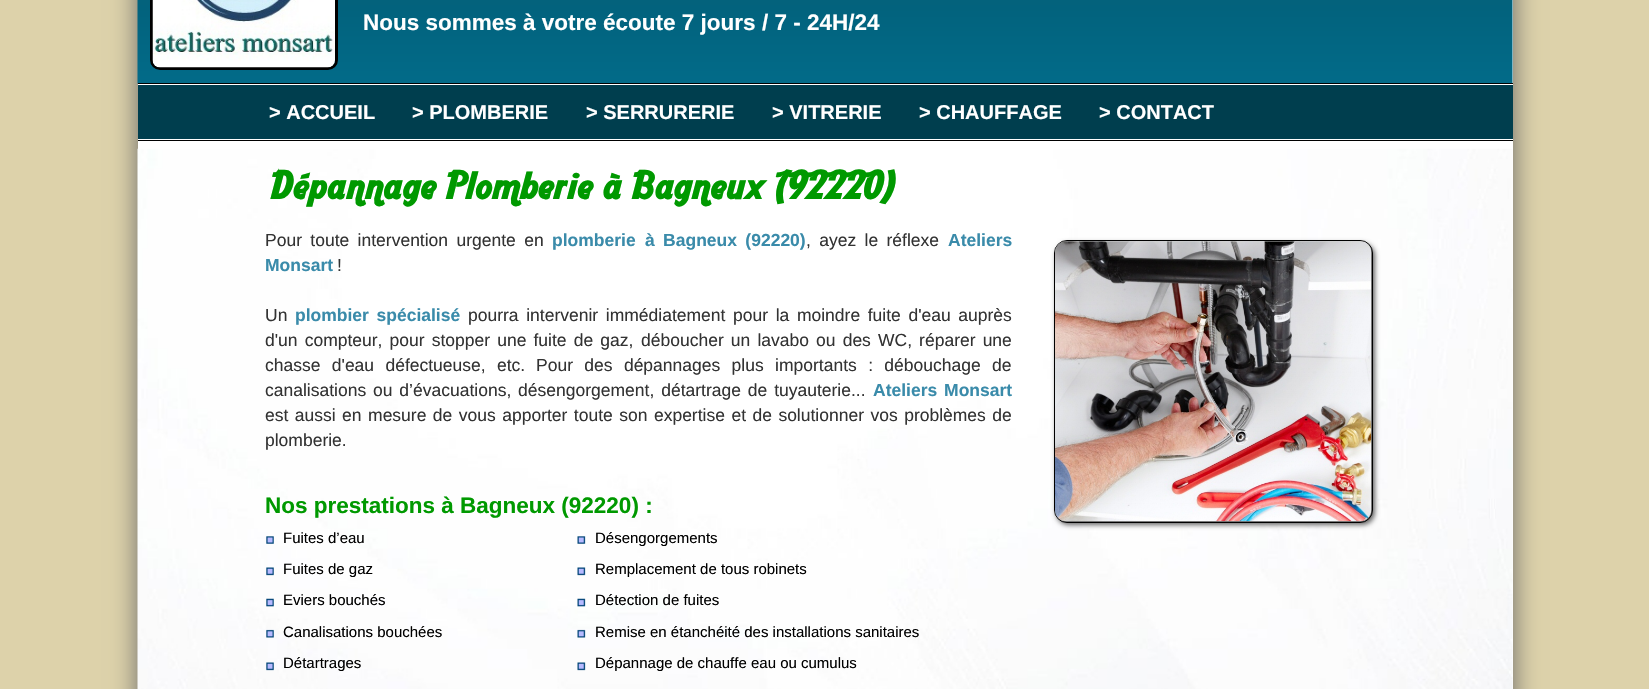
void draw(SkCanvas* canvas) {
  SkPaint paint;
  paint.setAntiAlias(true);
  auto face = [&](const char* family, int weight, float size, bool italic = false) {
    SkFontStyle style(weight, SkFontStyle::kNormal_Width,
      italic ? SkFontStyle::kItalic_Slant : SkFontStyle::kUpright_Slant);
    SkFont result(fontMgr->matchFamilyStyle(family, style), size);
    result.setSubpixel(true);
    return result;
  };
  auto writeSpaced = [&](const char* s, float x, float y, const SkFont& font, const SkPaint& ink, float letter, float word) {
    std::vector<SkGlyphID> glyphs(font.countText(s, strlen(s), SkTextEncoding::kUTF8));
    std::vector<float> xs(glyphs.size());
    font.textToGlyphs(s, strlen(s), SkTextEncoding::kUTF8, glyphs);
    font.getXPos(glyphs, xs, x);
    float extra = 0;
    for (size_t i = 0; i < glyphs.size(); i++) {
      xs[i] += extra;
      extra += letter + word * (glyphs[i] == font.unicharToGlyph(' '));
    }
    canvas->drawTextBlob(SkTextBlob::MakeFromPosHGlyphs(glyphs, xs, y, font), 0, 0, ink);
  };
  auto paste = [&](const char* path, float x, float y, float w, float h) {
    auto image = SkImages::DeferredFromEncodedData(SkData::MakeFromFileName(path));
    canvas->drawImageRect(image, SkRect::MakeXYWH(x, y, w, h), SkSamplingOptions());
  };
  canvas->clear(0xffddd2aa);
  paint.setColor(0xff666666);
  paint.setMaskFilter(SkMaskFilter::MakeBlur(kNormal_SkBlurStyle, 12.5f));
  canvas->drawRect(SkRect::MakeXYWH(138, -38, 1375, 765), paint);
  paint.setMaskFilter(nullptr);
  paint.setColor(0xffffffff);
  canvas->drawRect(SkRect::MakeXYWH(1512, 0, 1, 83), paint);
  paste("img/1.png", 137, 0, 1376, 84);
  paint.setColor(0xff000000);
  canvas->drawRect(SkRect::MakeXYWH(138, 83, 1375, 1), paint);
  paint.setStroke(true);
  paint.setStrokeWidth(3);
  canvas->drawRoundRect(SkRect::MakeXYWH(151.5f, -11.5f, 185, 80), 8.5f, 8.5f, paint);
  paste("img/2.png", 152, 0, 183, 68);
  paint.setStroke(false);
  {
    const struct { float x, y, w, h; SkColor color; } items[] = {
      {138, 85, 1375, 54, 0xff003e4e},
      {138, 84, 1375, 1, 0xffffffff},
      {138, 139, 1375, 1, 0xffffffff},
      {138, 141, 1375, 548, 0xffffffff},
    };
    for (auto [x, y, w, h, color] : items) {
      paint.setColor(color);
      canvas->drawRect(SkRect::MakeXYWH(x, y, w, h), paint);
    }
  }
  paste("img/3.png", 137, 148, 1376, 541);
  paint.setColor(0xff000000);
  canvas->drawRect(SkRect::MakeXYWH(138, 140, 1375, 1), paint);
  paste("img/4.png", 266, 536, 8, 8);
  paste("img/5.png", 266, 567, 8, 9);
  paste("img/6.png", 266, 598, 8, 9);
  paste("img/7.png", 266, 629, 8, 9);
  paste("img/8.png", 266, 662, 8, 9);
  paste("img/9.png", 577, 536, 9, 8);
  paste("img/10.png", 577, 567, 9, 9);
  paste("img/11.png", 577, 598, 9, 9);
  paste("img/12.png", 577, 629, 9, 9);
  paste("img/13.png", 577, 662, 9, 9);
  paint.setColor(0xff666666);
  paint.setMaskFilter(SkMaskFilter::MakeBlur(kNormal_SkBlurStyle, 2.5f));
  canvas->drawRoundRect(SkRect::MakeXYWH(1056, 243, 319, 282), 13, 13, paint);
  paint.setMaskFilter(nullptr);
  paint.setStroke(true);
  paint.setStrokeWidth(1);
  paint.setColor(0xff000000);
  canvas->drawRoundRect(SkRect::MakeXYWH(1054.5f, 240.5f, 318, 282), 12.5f, 12.5f, paint);
  paste("img/14.png", 1055, 241, 317, 281);
  auto f0 = face("Liberation Sans", 700, 22.5f);
  paint.setStroke(false);
  paint.setColor(0xffffffff);
  canvas->drawString("Nous sommes à votre écoute 7 jours / 7 - 24H/24", 363, 30, f0, paint);
  auto f1 = face("Liberation Sans", 700, 20);
  {
    const struct { const char* s; float x, y; } items[] = {
      {"> ACCUEIL", 269, 119},
      {"> PLOMBERIE", 412, 119},
      {"> SERRURERIE", 586, 119},
      {"> VITRERIE", 772, 119},
      {"> CHAUFFAGE", 919, 119},
      {"> CONTACT", 1099, 119},
    };
    for (auto [s, x, y] : items) {
      canvas->drawString(s, x, y, f1, paint);
    }
  }
  auto f2 = face("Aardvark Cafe", 700, 37.5f);
  paint.setColor(0xff009900);
  writeSpaced("Dépannage Plomberie à Bagneux (92220)", 271, 199, f2, paint, 1.25f, 0);
  auto f3 = face("Liberation Sans", 400, 17.5f);
  paint.setColor(0xff333333);
  writeSpaced("Pour toute intervention urgente en", 265, 246, f3, paint, 0, 3.5f);
  auto f4 = face("Liberation Sans", 700, 17.5f);
  paint.setColor(0xff3a8baa);
  canvas->drawString("plomberie", 552, 246, f4, paint);
  writeSpaced("à Bagneux (92220)", 645, 246, f4, paint, 0, 3.5f);
  paint.setColor(0xff333333);
  writeSpaced(", ayez le réflexe", 806, 246, f3, paint, 0, 3.5f);
  paint.setColor(0xff3a8baa);
  canvas->drawString("Ateliers", 948, 246, f4, paint);
  canvas->drawString("Monsart", 265, 271, f4, paint);
  paint.setColor(0xff333333);
  canvas->drawString("!", 337, 271, f3, paint);
  canvas->drawString("Un", 265, 321, f3, paint);
  paint.setColor(0xff3a8baa);
  writeSpaced("plombier spécialisé", 295, 321, f4, paint, 0, 2.75f);
  paint.setColor(0xff333333);
  writeSpaced("pourra intervenir immédiatement pour la moindre fuite d'eau auprès", 468, 321, f3, paint, 0, 2.75f);
  writeSpaced("d'un compteur, pour stopper une fuite de gaz,", 265, 346, f3, paint, 0, 2.25f);
  writeSpaced("déboucher un lavabo ou des WC, réparer une", 641, 346, f3, paint, 0, 2.25f);
  writeSpaced("chasse d'eau défectueuse, etc.", 265, 371, f3, paint, 0, 6.5f);
  writeSpaced("Pour des dépannages plus importants : débouchage de", 536, 371, f3, paint, 0, 6.5f);
  writeSpaced("canalisations ou d’évacuations, désengorgement, détartrage de tuyauterie...", 265, 396, f3, paint, 0, 2);
  paint.setColor(0xff3a8baa);
  writeSpaced("Ateliers Monsart", 873, 396, f4, paint, 0, 2);
  paint.setColor(0xff333333);
  writeSpaced("est aussi en mesure de vous apporter toute son expertise et de solutionner vos problèmes de", 265, 421, f3, paint, 0, 1.6f);
  canvas->drawString("plomberie.", 265, 446, f3, paint);
  paint.setColor(0xff009900);
  canvas->drawString("Nos prestations à Bagneux (92220) :", 265, 513, f0, paint);
  auto f5 = face("Liberation Sans", 400, 15);
  paint.setColor(0xff000000);
  {
    const struct { const char* s; float x, y; } items[] = {
      {"Fuites d’eau", 283, 543},
      {"Fuites de gaz", 283, 574},
      {"Eviers bouchés", 283, 605},
      {"Canalisations bouchées", 283, 637},
      {"Détartrages", 283, 668},
      {"Désengorgements", 595, 543},
      {"Remplacement de tous robinets", 595, 574},
      {"Détection de fuites", 595, 605},
      {"Remise en étanchéité des installations sanitaires", 595, 637},
      {"Dépannage de chauffe eau ou cumulus", 595, 668},
    };
    for (auto [s, x, y] : items) {
      canvas->drawString(s, x, y, f5, paint);
    }
  }
}
